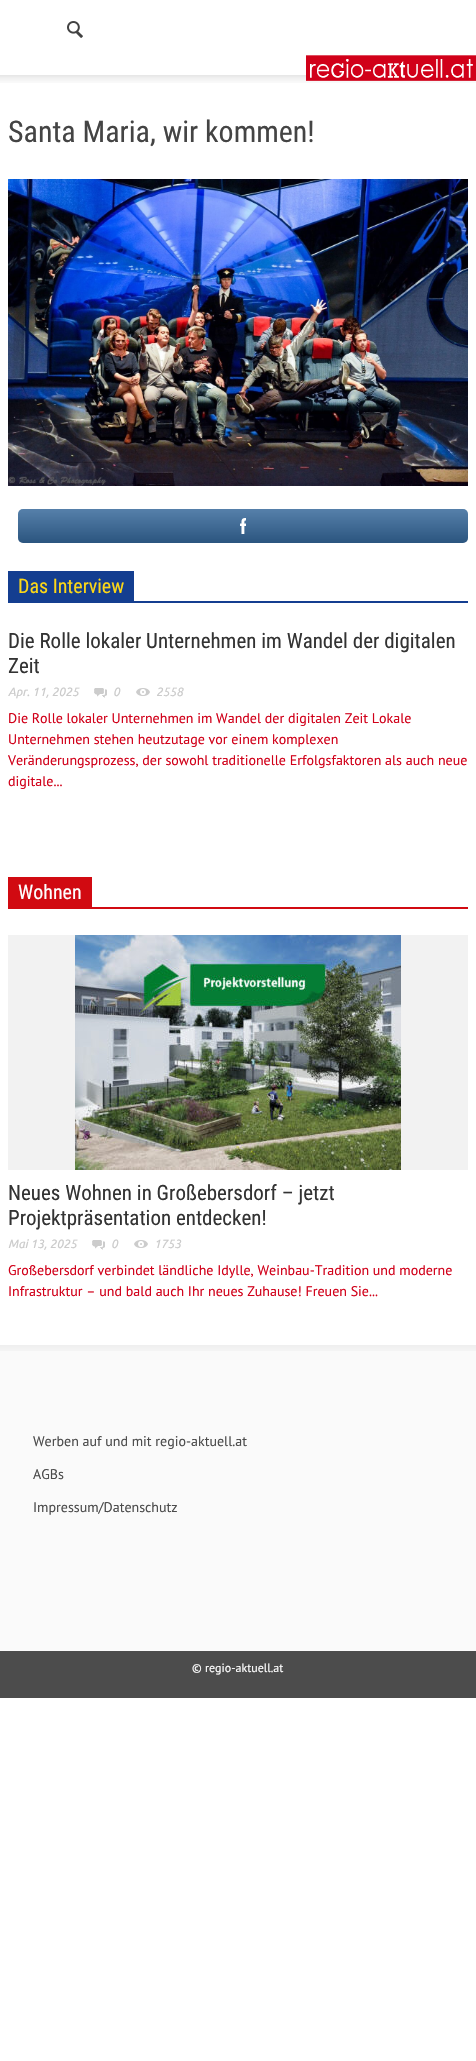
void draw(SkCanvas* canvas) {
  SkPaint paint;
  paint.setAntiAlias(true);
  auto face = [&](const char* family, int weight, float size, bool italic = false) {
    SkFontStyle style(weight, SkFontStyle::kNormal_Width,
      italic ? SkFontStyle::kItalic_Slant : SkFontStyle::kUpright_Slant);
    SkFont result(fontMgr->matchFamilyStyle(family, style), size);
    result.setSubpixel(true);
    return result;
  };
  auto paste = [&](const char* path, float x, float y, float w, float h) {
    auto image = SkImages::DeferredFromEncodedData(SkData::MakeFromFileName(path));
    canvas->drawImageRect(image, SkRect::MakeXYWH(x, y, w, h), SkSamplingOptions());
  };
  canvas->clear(0xffffffff);
  paste("img/1.png", 67, 21, 16, 17);
  paste("img/3.png", 0, 75, 476, 8);
  paste("img/2.png", 306, 55, 170, 26);
  paste("img/4.png", 8, 179, 460, 307);
  paint.setColor(0xff336699);
  canvas->drawRoundRect(SkRect::MakeXYWH(18, 509, 450, 34), 5, 5, paint);
  {
    const SkColor colors[] = {0x2b000000, 0x2bffffff};
    const float stops[] = {0, 1};
    const SkPoint ends[] = {{243, 543}, {243, 509}};
    paint.setShader(SkGradientShader::MakeLinear(ends, colors, stops, 2, SkTileMode::kClamp));
    paint.setAlpha(255);
  }
  canvas->drawRoundRect(SkRect::MakeXYWH(18, 509, 450, 34), 5, 5, paint);
  paste("img/5.png", 240, 518, 6, 16);
  paint.setShader(nullptr);
  paint.setColor(0xff143e90);
  canvas->drawRect(SkRect::MakeXYWH(8, 601, 460, 2), paint);
  canvas->drawRect(SkRect::MakeXYWH(8, 571, 126, 30), paint);
  paste("img/6.png", 94, 688, 13, 10);
  paste("img/7.png", 136, 688, 14, 8);
  {
    const struct { float x, y, w, h; SkColor color; } items[] = {
      {8, 907, 460, 2, 0xffd10a11},
      {8, 877, 84, 30, 0xffd10a11},
      {8, 935, 460, 235, 0xfff2f2f2},
    };
    for (auto [x, y, w, h, color] : items) {
      paint.setColor(color);
      canvas->drawRect(SkRect::MakeXYWH(x, y, w, h), paint);
    }
  }
  paste("img/8.png", 75, 935, 326, 235);
  paste("img/6.png", 92, 1240, 13, 10);
  paste("img/7.png", 134, 1240, 14, 8);
  paint.setColor(0xfffafafa);
  canvas->drawRect(SkRect::MakeXYWH(0, 1345, 476, 306), paint);
  paste("img/9.png", 0, 1345, 476, 6);
  paint.setColor(0xff4c4c4c);
  canvas->drawRect(SkRect::MakeXYWH(0, 1651, 476, 47), paint);
  auto f0 = face("Roboto Condensed", 400, 30);
  paint.setColor(0xff444444);
  canvas->drawString("Santa Maria, wir kommen!", 8, 142, f0, paint);
  auto f1 = face("Roboto Condensed", 400, 20);
  paint.setColor(0xfffcd717);
  canvas->drawString("Das Interview", 18, 593, f1, paint);
  auto f2 = face("Roboto Condensed", 400, 21);
  paint.setColor(0xff333333);
  canvas->drawString("Die Rolle lokaler Unternehmen im Wandel der digitalen", 8, 648, f2, paint);
  canvas->drawString("Zeit", 8, 673, f2, paint);
  auto f3 = face("Ubuntu", 400, 12, true);
  paint.setColor(0xffcbcbcb);
  {
    const struct { const char* s; float x, y; } items[] = {
      {"Apr. 11, 2025", 8, 696},
      {"0", 113, 696},
      {"2558", 156, 696},
    };
    for (auto [s, x, y] : items) {
      canvas->drawString(s, x, y, f3, paint);
    }
  }
  auto f4 = face("PT Sans", 400, 14);
  paint.setColor(0xffd10019);
  {
    const struct { const char* s; float x, y; } items[] = {
      {"Die Rolle lokaler Unternehmen im Wandel der digitalen Zeit Lokale", 8, 723},
      {"Unternehmen stehen heutzutage vor einem komplexen", 8, 744},
      {"Veränderungsprozess, der sowohl traditionelle Erfolgsfaktoren als auch neue", 8, 765},
      {"digitale...", 8, 786},
    };
    for (auto [s, x, y] : items) {
      canvas->drawString(s, x, y, f4, paint);
    }
  }
  paint.setColor(0xffffffff);
  canvas->drawString("Wohnen", 18, 899, f1, paint);
  paint.setColor(0xff333333);
  canvas->drawString("Neues Wohnen in Großebersdorf – jetzt", 8, 1200, f2, paint);
  canvas->drawString("Projektpräsentation entdecken!", 8, 1225, f2, paint);
  paint.setColor(0xffcbcbcb);
  {
    const struct { const char* s; float x, y; } items[] = {
      {"Mai 13, 2025", 8, 1248},
      {"0", 111, 1248},
      {"1753", 154, 1248},
    };
    for (auto [s, x, y] : items) {
      canvas->drawString(s, x, y, f3, paint);
    }
  }
  paint.setColor(0xffd10019);
  canvas->drawString("Großebersdorf verbindet ländliche Idylle, Weinbau-Tradition und moderne", 8, 1275, f4, paint);
  canvas->drawString("Infrastruktur – und bald auch Ihr neues Zuhause! Freuen Sie...", 8, 1296, f4, paint);
  paint.setColor(0xff4b4b4b);
  {
    const struct { const char* s; float x, y; } items[] = {
      {"Werben auf und mit regio-aktuell.at", 33, 1446},
      {"AGBs", 33, 1479},
      {"Impressum/Datenschutz", 33, 1512},
    };
    for (auto [s, x, y] : items) {
      canvas->drawString(s, x, y, f4, paint);
    }
  }
  auto f5 = face("PT Sans", 400, 12);
  paint.setColor(0xffffffff);
  canvas->drawString("© regio-aktuell.at", 192, 1672, f5, paint);
}
